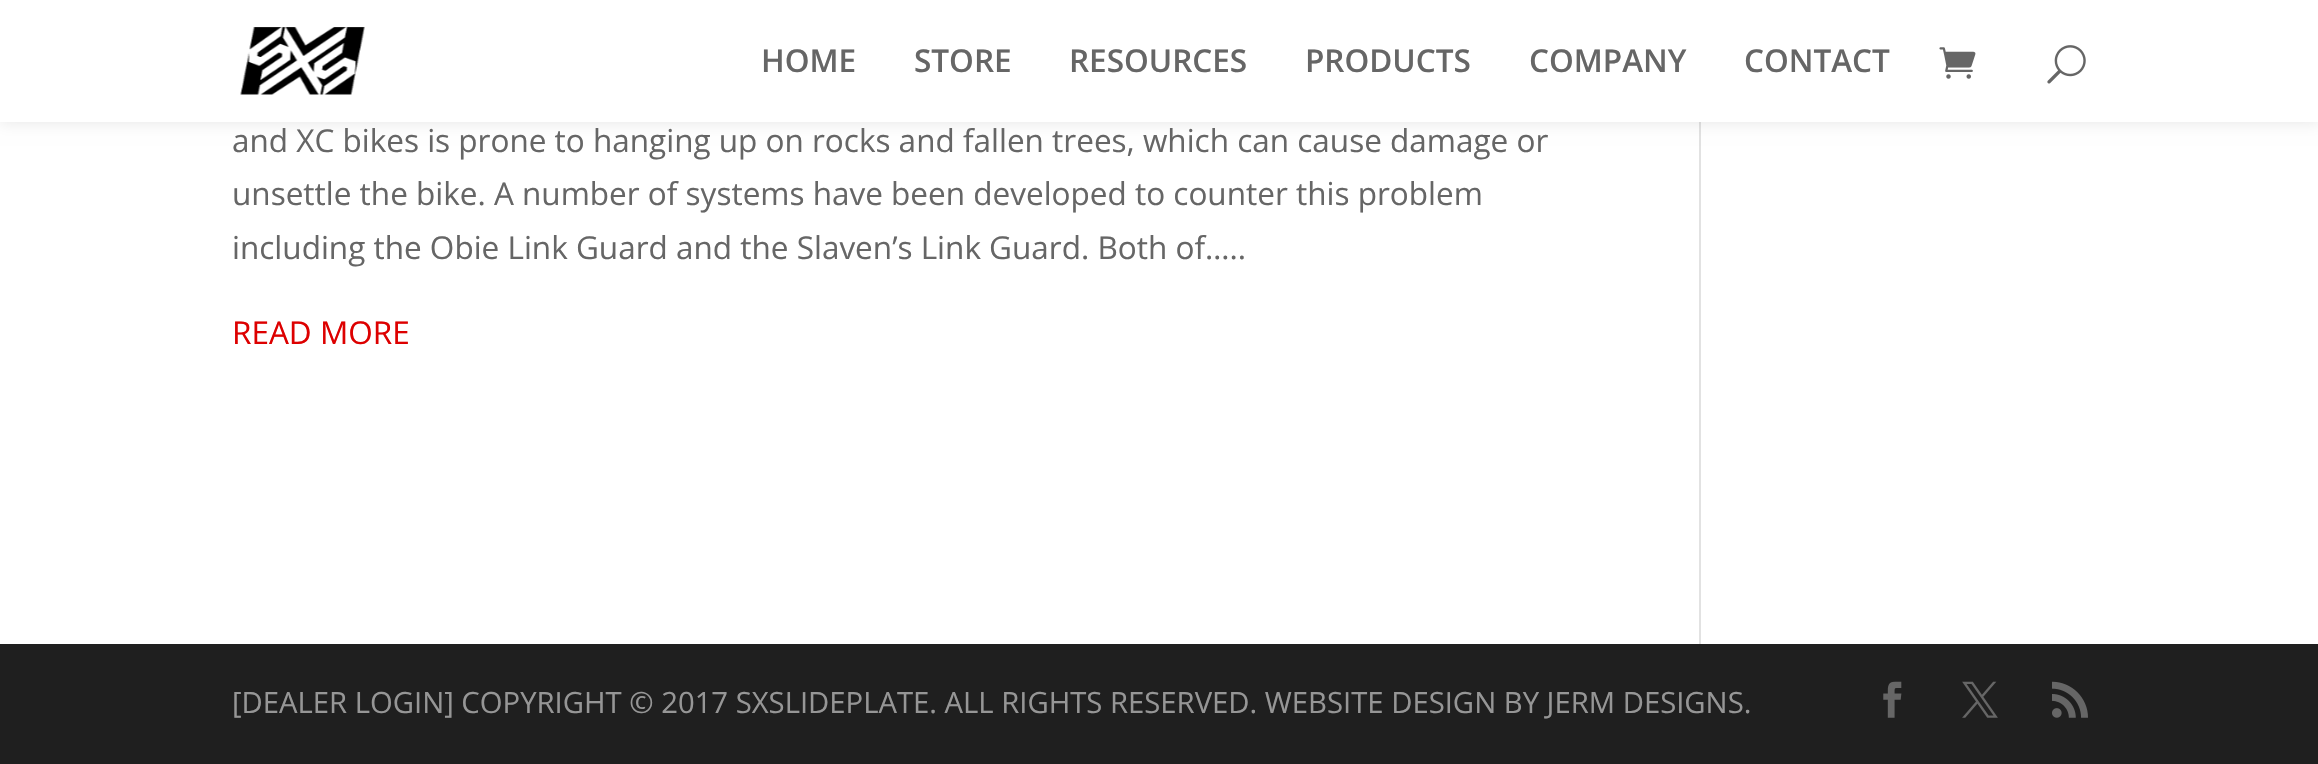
void draw(SkCanvas* canvas) {
  SkPaint paint;
  paint.setAntiAlias(true);
  auto face = [&](const char* family, int weight, float size, bool italic = false) {
    SkFontStyle style(weight, SkFontStyle::kNormal_Width,
      italic ? SkFontStyle::kItalic_Slant : SkFontStyle::kUpright_Slant);
    SkFont result(fontMgr->matchFamilyStyle(family, style), size);
    result.setSubpixel(true);
    return result;
  };
  auto paste = [&](const char* path, float x, float y, float w, float h) {
    auto image = SkImages::DeferredFromEncodedData(SkData::MakeFromFileName(path));
    canvas->drawImageRect(image, SkRect::MakeXYWH(x, y, w, h), SkSamplingOptions());
  };
  canvas->clear(0xffffffff);
  paint.setColor(0xffe2e2e2);
  canvas->drawRect(SkRect::MakeXYWH(1699, 122, 2, 522), paint);
  paint.setColor(0x1a000000);
  paint.setMaskFilter(SkMaskFilter::MakeBlur(kNormal_SkBlurStyle, 8));
  canvas->drawRect(SkRect::MakeXYWH(0, 0, 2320, 122), paint);
  paint.setMaskFilter(nullptr);
  paint.setColor(0xffffffff);
  canvas->drawRect(SkRect::MakeXYWH(0, 0, 2318, 122), paint);
  paste("img/1.png", 240, 27, 125, 68);
  paste("img/2.png", 1939, 47, 37, 32);
  paste("img/3.png", 2047, 45, 39, 39);
  paint.setColor(0xff1f1f1f);
  canvas->drawRect(SkRect::MakeXYWH(0, 644, 2318, 120), paint);
  paste("img/4.png", 1883, 681, 19, 37);
  paste("img/5.png", 1962, 681, 36, 37);
  paste("img/6.png", 2052, 681, 36, 37);
  auto f0 = face("Open Sans", 600, 31.5f);
  paint.setColor(0xff666666);
  {
    const struct { const char* s; float x, y; } items[] = {
      {"HOME", 761, 72},
      {"STORE", 914, 72},
      {"RESOURCES", 1069, 72},
      {"PRODUCTS", 1305, 72},
      {"COMPANY", 1529, 72},
      {"CONTACT", 1744, 72},
    };
    for (auto [s, x, y] : items) {
      canvas->drawString(s, x, y, f0, paint);
    }
  }
  auto f1 = face("Open Sans", 400, 31.5f);
  {
    const struct { const char* s; float x, y; } items[] = {
      {"and XC bikes is prone to hanging up on rocks and fallen trees, which can cause damage or", 232, 152},
      {"unsettle the bike. A number of systems have been developed to counter this problem", 232, 205},
      {"including the Obie Link Guard and the Slaven’s Link Guard. Both of…..", 232, 259},
    };
    for (auto [s, x, y] : items) {
      canvas->drawString(s, x, y, f1, paint);
    }
  }
  paint.setColor(0xffdd0000);
  canvas->drawString("READ MORE", 232, 344, f1, paint);
  auto f2 = face("Open Sans", 400, 29.25f);
  paint.setColor(0xff969696);
  canvas->drawString("[DEALER LOGIN] COPYRIGHT © 2017 SXSLIDEPLATE. ALL RIGHTS RESERVED. WEBSITE DESIGN BY JERM DESIGNS.", 232, 713, f2, paint);
}
